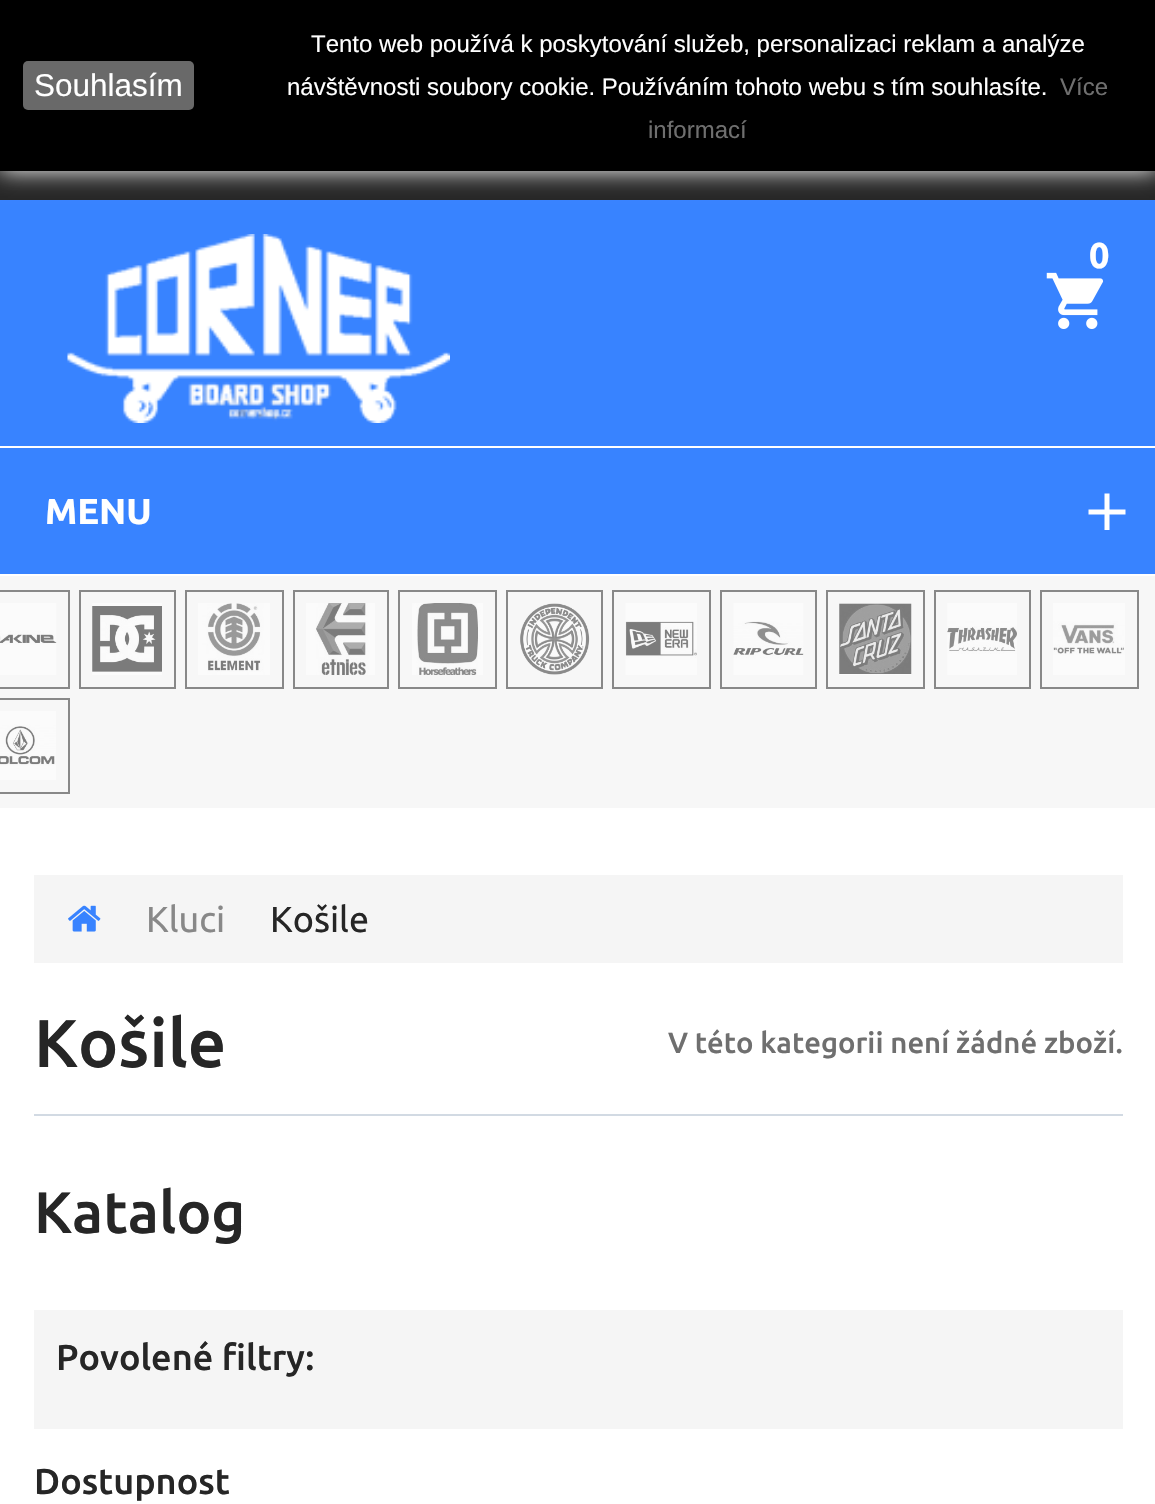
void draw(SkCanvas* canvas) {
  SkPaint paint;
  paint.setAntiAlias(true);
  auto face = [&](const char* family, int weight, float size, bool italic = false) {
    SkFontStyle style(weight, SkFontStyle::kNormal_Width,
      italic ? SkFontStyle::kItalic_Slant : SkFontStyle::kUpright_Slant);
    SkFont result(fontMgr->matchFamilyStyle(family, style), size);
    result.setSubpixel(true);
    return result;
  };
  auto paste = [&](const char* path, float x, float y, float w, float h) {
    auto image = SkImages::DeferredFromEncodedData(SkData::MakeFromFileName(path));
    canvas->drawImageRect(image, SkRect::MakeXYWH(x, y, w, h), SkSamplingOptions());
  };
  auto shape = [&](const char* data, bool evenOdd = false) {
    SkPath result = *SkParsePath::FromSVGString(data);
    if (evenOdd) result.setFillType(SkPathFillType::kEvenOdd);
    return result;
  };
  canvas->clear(0xffffffff);
  paint.setColor(0xff262626);
  canvas->drawRect(SkRect::MakeXYWH(0, 171, 1155, 29), paint);
  paint.setColor(0xff3883ff);
  canvas->drawRect(SkRect::MakeXYWH(0, 200, 1155, 374), paint);
  paint.setColor(0xffffffff);
  paint.setMaskFilter(SkMaskFilter::MakeBlur(kNormal_SkBlurStyle, 11));
  canvas->drawRect(SkRect::MakeXYWH(0, 0, 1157, 171), paint);
  paint.setMaskFilter(nullptr);
  paint.setColor(0xff000000);
  canvas->drawRect(SkRect::MakeXYWH(0, 0, 1155, 171), paint);
  paint.setColor(0xff696969);
  canvas->drawRoundRect(SkRect::MakeXYWH(23, 61, 171, 49), 5, 5, paint);
  paste("img/1.png", 67, 234, 383, 189);
  paste("img/2.png", 1046, 272, 58, 57);
  paint.setColor(0xffffffff);
  canvas->drawRect(SkRect::MakeXYWH(0, 446, 1155, 2), paint);
  canvas->drawPath(shape("M1125.5 514.5H1109.5V530H1104.5V514.5H1088.5V509.5H1104.5V493.5H1109.5V509.5H1125.5Z"), paint);
  paint.setColor(0xfff7f7f7);
  canvas->drawRect(SkRect::MakeXYWH(0, 576, 1155, 232), paint);
  paint.setStroke(true);
  paint.setStrokeWidth(2);
  paint.setColor(0xff888888);
  canvas->drawRect(SkRect::MakeXYWH(-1, 591, 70, 97), paint);
  paste("img/3.png", 0, 603, 57, 72);
  canvas->drawRect(SkRect::MakeXYWH(80, 591, 95, 97), paint);
  paste("img/4.png", 92, 603, 70, 72);
  canvas->drawRect(SkRect::MakeXYWH(186, 591, 97, 97), paint);
  paste("img/5.png", 198, 603, 72, 72);
  canvas->drawRect(SkRect::MakeXYWH(294, 591, 94, 97), paint);
  paste("img/6.png", 306, 603, 69, 72);
  canvas->drawRect(SkRect::MakeXYWH(399, 591, 97, 97), paint);
  paste("img/7.png", 412, 603, 71, 72);
  canvas->drawRect(SkRect::MakeXYWH(507, 591, 95, 97), paint);
  paste("img/8.png", 520, 603, 70, 72);
  canvas->drawRect(SkRect::MakeXYWH(613, 591, 97, 97), paint);
  paste("img/9.png", 625, 603, 72, 72);
  canvas->drawRect(SkRect::MakeXYWH(721, 591, 95, 97), paint);
  paste("img/10.png", 733, 603, 71, 72);
  canvas->drawRect(SkRect::MakeXYWH(827, 591, 97, 97), paint);
  paste("img/11.png", 839, 603, 73, 72);
  canvas->drawRect(SkRect::MakeXYWH(935, 591, 95, 97), paint);
  paste("img/12.png", 947, 603, 70, 72);
  canvas->drawRect(SkRect::MakeXYWH(1041, 591, 97, 97), paint);
  paste("img/13.png", 1053, 603, 72, 72);
  canvas->drawRect(SkRect::MakeXYWH(-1, 699, 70, 94), paint);
  paste("img/14.png", 0, 711, 56, 69);
  paint.setStroke(false);
  paint.setColor(0xfff5f5f5);
  canvas->drawRect(SkRect::MakeXYWH(34, 875, 1089, 88), paint);
  paste("img/15.png", 68, 905, 33, 27);
  paint.setColor(0xffd2dae3);
  canvas->drawRect(SkRect::MakeXYWH(34, 1114, 1089, 2), paint);
  paint.setColor(0xfff5f5f5);
  canvas->drawRect(SkRect::MakeXYWH(34, 1310, 1089, 119), paint);
  auto f0 = face("Liberation Sans", 400, 31.5f);
  paint.setColor(0xffffffff);
  canvas->drawString("Souhlasím", 34, 96, f0, paint);
  auto f1 = face("Liberation Sans", 400, 24);
  canvas->drawString("Tento web používá k poskytování služeb, personalizaci reklam a analýze", 311, 52, f1, paint);
  canvas->drawString("návštěvnosti soubory cookie. Používáním tohoto webu s tím souhlasíte.", 287, 95, f1, paint);
  paint.setColor(0xff6f6f6f);
  canvas->drawString("Více", 1060, 95, f1, paint);
  canvas->drawString("informací", 648, 138, f1, paint);
  auto f2 = face("Ubuntu", 700, 36);
  paint.setColor(0xffffffff);
  canvas->drawString("0", 1089, 268, f2, paint);
  canvas->drawString("MENU", 45, 524, f2, paint);
  auto f3 = face("Ubuntu", 400, 36);
  paint.setColor(0xff888888);
  canvas->drawString("Kluci", 146, 932, f3, paint);
  paint.setColor(0xff262626);
  canvas->drawString("Košile", 270, 932, f3, paint);
  auto f4 = face("Ubuntu", 500, 67.5f);
  canvas->drawString("Košile", 34, 1067, f4, paint);
  auto f5 = face("Ubuntu", 500, 29.25f);
  paint.setColor(0xff6f6f6f);
  canvas->drawString("V této kategorii není žádné zboží.", 668, 1053, f5, paint);
  auto f6 = face("Ubuntu", 500, 58.5f);
  paint.setColor(0xff262626);
  canvas->drawString("Katalog", 34, 1233, f6, paint);
  auto f7 = face("Ubuntu", 500, 36);
  canvas->drawString("Povolené filtry:", 56, 1370, f7, paint);
  canvas->drawString("Dostupnost", 34, 1494, f7, paint);
}
